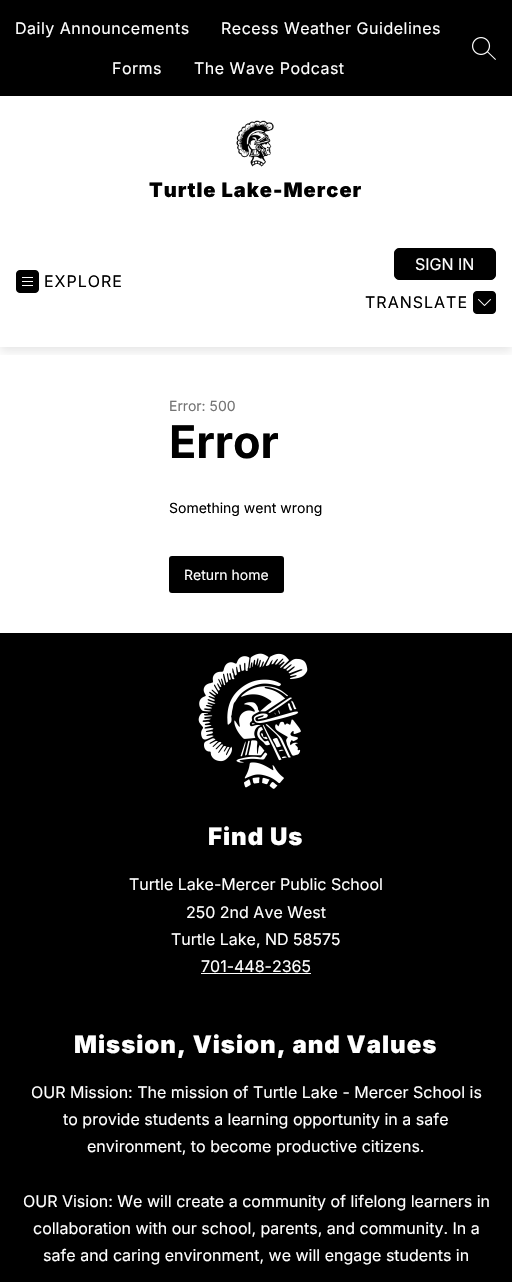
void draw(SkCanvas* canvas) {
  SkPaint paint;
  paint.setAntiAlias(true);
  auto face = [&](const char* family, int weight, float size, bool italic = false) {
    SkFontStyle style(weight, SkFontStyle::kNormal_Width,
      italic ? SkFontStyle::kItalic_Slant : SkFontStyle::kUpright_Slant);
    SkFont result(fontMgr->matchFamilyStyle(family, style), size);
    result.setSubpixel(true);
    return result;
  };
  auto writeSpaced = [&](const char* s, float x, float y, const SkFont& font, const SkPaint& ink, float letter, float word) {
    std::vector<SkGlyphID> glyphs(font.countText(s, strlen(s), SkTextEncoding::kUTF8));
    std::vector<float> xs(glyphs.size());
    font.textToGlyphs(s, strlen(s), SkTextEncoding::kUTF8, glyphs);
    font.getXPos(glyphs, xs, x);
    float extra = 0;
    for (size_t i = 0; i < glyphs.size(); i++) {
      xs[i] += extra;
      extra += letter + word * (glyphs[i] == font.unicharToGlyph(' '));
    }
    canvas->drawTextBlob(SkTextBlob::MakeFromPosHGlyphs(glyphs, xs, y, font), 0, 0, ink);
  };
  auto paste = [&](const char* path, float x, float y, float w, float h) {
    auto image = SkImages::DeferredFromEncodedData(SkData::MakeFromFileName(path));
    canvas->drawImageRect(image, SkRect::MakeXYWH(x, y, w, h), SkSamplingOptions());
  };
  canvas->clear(0xffffffff);
  canvas->save();
  canvas->clipRect(SkRect::MakeXYWH(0, 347, 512, 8));
  paint.setColor(0x1a000000);
  paint.setMaskFilter(SkMaskFilter::MakeBlur(kNormal_SkBlurStyle, 5));
  canvas->drawRect(SkRect::MakeXYWH(0, 4, 512, 347), paint);
  paint.setMaskFilter(nullptr);
  canvas->restore();
  paint.setColor(0xff000000);
  canvas->drawRect(SkRect::MakeXYWH(0, 0, 512, 96), paint);
  paste("img/1.png", 472, 37, 24, 23);
  paste("img/2.png", 236, 120, 38, 47);
  paste("img/3.png", 16, 270, 23, 23);
  canvas->drawRoundRect(SkRect::MakeXYWH(394.5f, 248.5f, 101, 31), 4.5f, 4.5f, paint);
  paint.setStroke(true);
  paint.setStrokeWidth(1);
  canvas->drawRoundRect(SkRect::MakeXYWH(394.5f, 248.5f, 101, 31), 4.5f, 4.5f, paint);
  paste("img/4.png", 473, 291, 23, 23);
  paint.setStroke(false);
  canvas->drawRoundRect(SkRect::MakeXYWH(169, 556, 115, 37), 3, 3, paint);
  canvas->drawRect(SkRect::MakeXYWH(0, 633, 512, 649), paint);
  paste("img/5.png", 198, 653, 110, 136);
  paint.setColor(0xffffffff);
  canvas->drawRect(SkRect::MakeXYWH(201, 973, 110, 1), paint);
  auto f0 = face("Inter", 400, 16);
  {
    const struct { const char* s; float x, y; } items[] = {
      {"Daily Announcements", 15, 34},
      {"Recess Weather Guidelines", 221, 34},
      {"Forms", 112, 74},
      {"The Wave Podcast", 194, 74},
    };
    for (auto [s, x, y] : items) {
      writeSpaced(s, x, y, f0, paint, 0.5f, 0);
    }
  }
  auto f1 = face("Inter", 900, 20);
  paint.setColor(0xff000000);
  writeSpaced("Turtle Lake-Mercer", 149, 197, f1, paint, 1, 0);
  writeSpaced("EXPLORE", 44, 287, f0, paint, 1, 0);
  paint.setColor(0xffffffff);
  canvas->drawString("SIGN IN", 415, 270, f0, paint);
  paint.setColor(0xff000000);
  writeSpaced("TRANSLATE", 365, 308, f0, paint, 1, 0);
  auto f2 = face("Inter", 400, 14);
  paint.setColor(0xff747474);
  canvas->drawString("Error: 500", 169, 411, f2, paint);
  auto f3 = face("Inter", 700, 45);
  paint.setColor(0xff000000);
  canvas->drawString("Error", 169, 458, f3, paint);
  canvas->drawString("Something went wrong", 169, 513, f2, paint);
  paint.setColor(0xffffffff);
  canvas->drawString("Return home", 184, 580, f2, paint);
  auto f4 = face("Inter", 900, 24);
  writeSpaced("Find Us", 208, 845, f4, paint, 1, 0);
  {
    const struct { const char* s; float x, y; } items[] = {
      {"Turtle Lake-Mercer Public School", 129, 890},
      {"250 2nd Ave West", 186, 918},
      {"Turtle Lake, ND 58575", 171, 945},
      {"701-448-2365", 201, 972},
    };
    for (auto [s, x, y] : items) {
      canvas->drawString(s, x, y, f0, paint);
    }
  }
  writeSpaced("Mission, Vision, and Values", 74, 1053, f4, paint, 1, 0);
  {
    const struct { const char* s; float x, y; } items[] = {
      {"OUR Mission: The mission of Turtle Lake - Mercer School is", 31, 1098},
      {"to provide students a learning opportunity in a safe", 63, 1125},
      {"environment, to become productive citizens.", 87, 1152},
      {"OUR Vision: We will create a community of lifelong learners in", 23, 1207},
      {"collaboration with our school, parents, and community. In a", 33, 1234},
      {"safe and caring environment, we will engage students in", 43, 1261},
    };
    for (auto [s, x, y] : items) {
      canvas->drawString(s, x, y, f0, paint);
    }
  }
}
